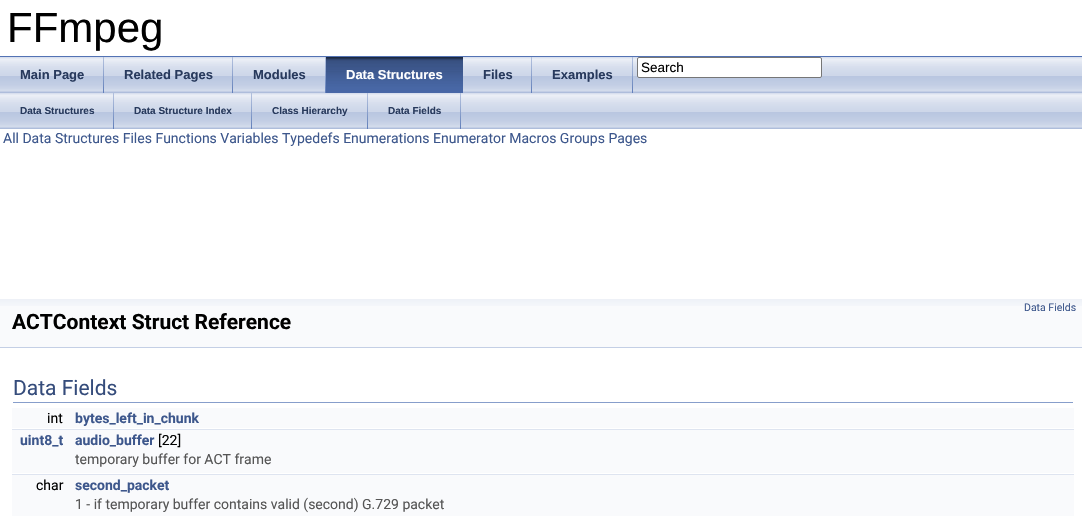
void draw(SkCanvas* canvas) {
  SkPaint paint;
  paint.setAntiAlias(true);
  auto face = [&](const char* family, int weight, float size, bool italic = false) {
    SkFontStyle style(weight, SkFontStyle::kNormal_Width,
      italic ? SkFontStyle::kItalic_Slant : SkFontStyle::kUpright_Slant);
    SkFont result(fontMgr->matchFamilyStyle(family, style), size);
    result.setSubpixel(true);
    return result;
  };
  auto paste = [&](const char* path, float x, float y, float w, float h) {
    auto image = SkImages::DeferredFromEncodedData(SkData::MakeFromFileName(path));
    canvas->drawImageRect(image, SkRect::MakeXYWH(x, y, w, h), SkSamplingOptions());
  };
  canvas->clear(0xffffffff);
  paint.setColor(0xff5373b4);
  canvas->drawRect(SkRect::MakeXYWH(0, 56, 1082, 1), paint);
  paste("img/1.png", 0, 57, 1082, 36);
  paint.setColor(0xffffffff);
  canvas->drawRoundRect(SkRect::MakeXYWH(637.5f, 57.5f, 184, 20), 1.5f, 1.5f, paint);
  paint.setStroke(true);
  paint.setStrokeWidth(1);
  paint.setColor(0xff767676);
  canvas->drawRoundRect(SkRect::MakeXYWH(637.5f, 57.5f, 184, 20), 1.5f, 1.5f, paint);
  paste("img/2.png", 103, 57, 1, 36);
  paste("img/2.png", 232, 57, 1, 36);
  paste("img/2.png", 325, 57, 1, 36);
  paste("img/3.png", 326, 57, 137, 36);
  paste("img/2.png", 531, 57, 1, 36);
  paste("img/2.png", 632, 57, 1, 36);
  paste("img/1.png", 0, 93, 1082, 36);
  paste("img/2.png", 113, 93, 1, 36);
  paste("img/2.png", 251, 93, 1, 36);
  paste("img/2.png", 367, 93, 1, 36);
  paste("img/2.png", 460, 93, 1, 36);
  paint.setStroke(false);
  paint.setColor(0xfff9fafc);
  canvas->drawRect(SkRect::MakeXYWH(0, 306, 1082, 41), paint);
  paste("img/4.png", 0, 298, 1082, 8);
  {
    const struct { float x, y, w, h; SkColor color; } items[] = {
      {0, 347, 1082, 1, 0xffc4cfe5},
      {13, 402, 1060, 1, 0xff879ecb},
      {12, 408, 1062, 20, 0xfff9fafc},
      {12, 429, 1062, 1, 0xffdee4f0},
      {12, 430, 1062, 20, 0xfff9fafc},
      {12, 450, 1062, 23, 0xfff9fafc},
      {12, 474, 1062, 1, 0xffdee4f0},
      {12, 475, 1062, 20, 0xfff9fafc},
      {12, 495, 1062, 21, 0xfff9fafc},
    };
    for (auto [x, y, w, h, color] : items) {
      paint.setColor(color);
      canvas->drawRect(SkRect::MakeXYWH(x, y, w, h), paint);
    }
  }
  auto f0 = face("Liberation Sans", 400, 42);
  paint.setColor(0xff000000);
  canvas->drawString("FFmpeg", 7, 42, f0, paint);
  auto f1 = face("Liberation Sans", 400, 13.5f);
  canvas->drawString("Search", 641, 72, f1, paint);
  auto f2 = face("Liberation Sans", 700, 13);
  paint.setColor(0xff283a5d);
  {
    const struct { const char* s; float x, y; } items[] = {
      {"Main Page", 20, 79},
      {"Related Pages", 124, 79},
      {"Modules", 253, 79},
    };
    for (auto [s, x, y] : items) {
      canvas->drawString(s, x, y, f2, paint);
    }
  }
  paint.setColor(0xffffffff);
  canvas->drawString("Data Structures", 346, 79, f2, paint);
  paint.setColor(0xff283a5d);
  canvas->drawString("Files", 483, 79, f2, paint);
  canvas->drawString("Examples", 552, 79, f2, paint);
  auto f3 = face("Liberation Sans", 700, 10);
  {
    const struct { const char* s; float x, y; } items[] = {
      {"Data Structures", 20, 114},
      {"Data Structure Index", 134, 114},
      {"Class Hierarchy", 272, 114},
      {"Data Fields", 388, 114},
    };
    for (auto [s, x, y] : items) {
      canvas->drawString(s, x, y, f3, paint);
    }
  }
  auto f4 = face("Roboto", 400, 14);
  paint.setColor(0xff3d578c);
  canvas->drawString("All Data Structures Files Functions Variables Typedefs Enumerations Enumerator Macros Groups Pages", 3, 143, f4, paint);
  auto f5 = face("Roboto", 400, 10.5f);
  canvas->drawString("Data Fields", 1024, 311, f5, paint);
  auto f6 = face("Roboto", 700, 21);
  paint.setColor(0xff000000);
  canvas->drawString("ACTContext Struct Reference", 12, 329, f6, paint);
  auto f7 = face("Roboto", 400, 21);
  paint.setColor(0xff354c7b);
  canvas->drawString("Data Fields", 13, 395, f7, paint);
  paint.setColor(0xff000000);
  canvas->drawString("int", 47, 423, f4, paint);
  auto f8 = face("Roboto", 700, 14);
  paint.setColor(0xff3d578c);
  {
    const struct { const char* s; float x, y; } items[] = {
      {"bytes_left_in_chunk", 75, 423},
      {"uint8_t", 20, 445},
      {"audio_buffer", 75, 445},
    };
    for (auto [s, x, y] : items) {
      canvas->drawString(s, x, y, f8, paint);
    }
  }
  paint.setColor(0xff000000);
  canvas->drawString("[22]", 158, 445, f4, paint);
  paint.setColor(0xff555555);
  canvas->drawString("temporary buffer for ACT frame", 75, 464, f4, paint);
  paint.setColor(0xff000000);
  canvas->drawString("char", 36, 490, f4, paint);
  paint.setColor(0xff3d578c);
  canvas->drawString("second_packet", 75, 490, f8, paint);
  paint.setColor(0xff555555);
  canvas->drawString("1 - if temporary buffer contains valid (second) G.729 packet", 75, 509, f4, paint);
}
